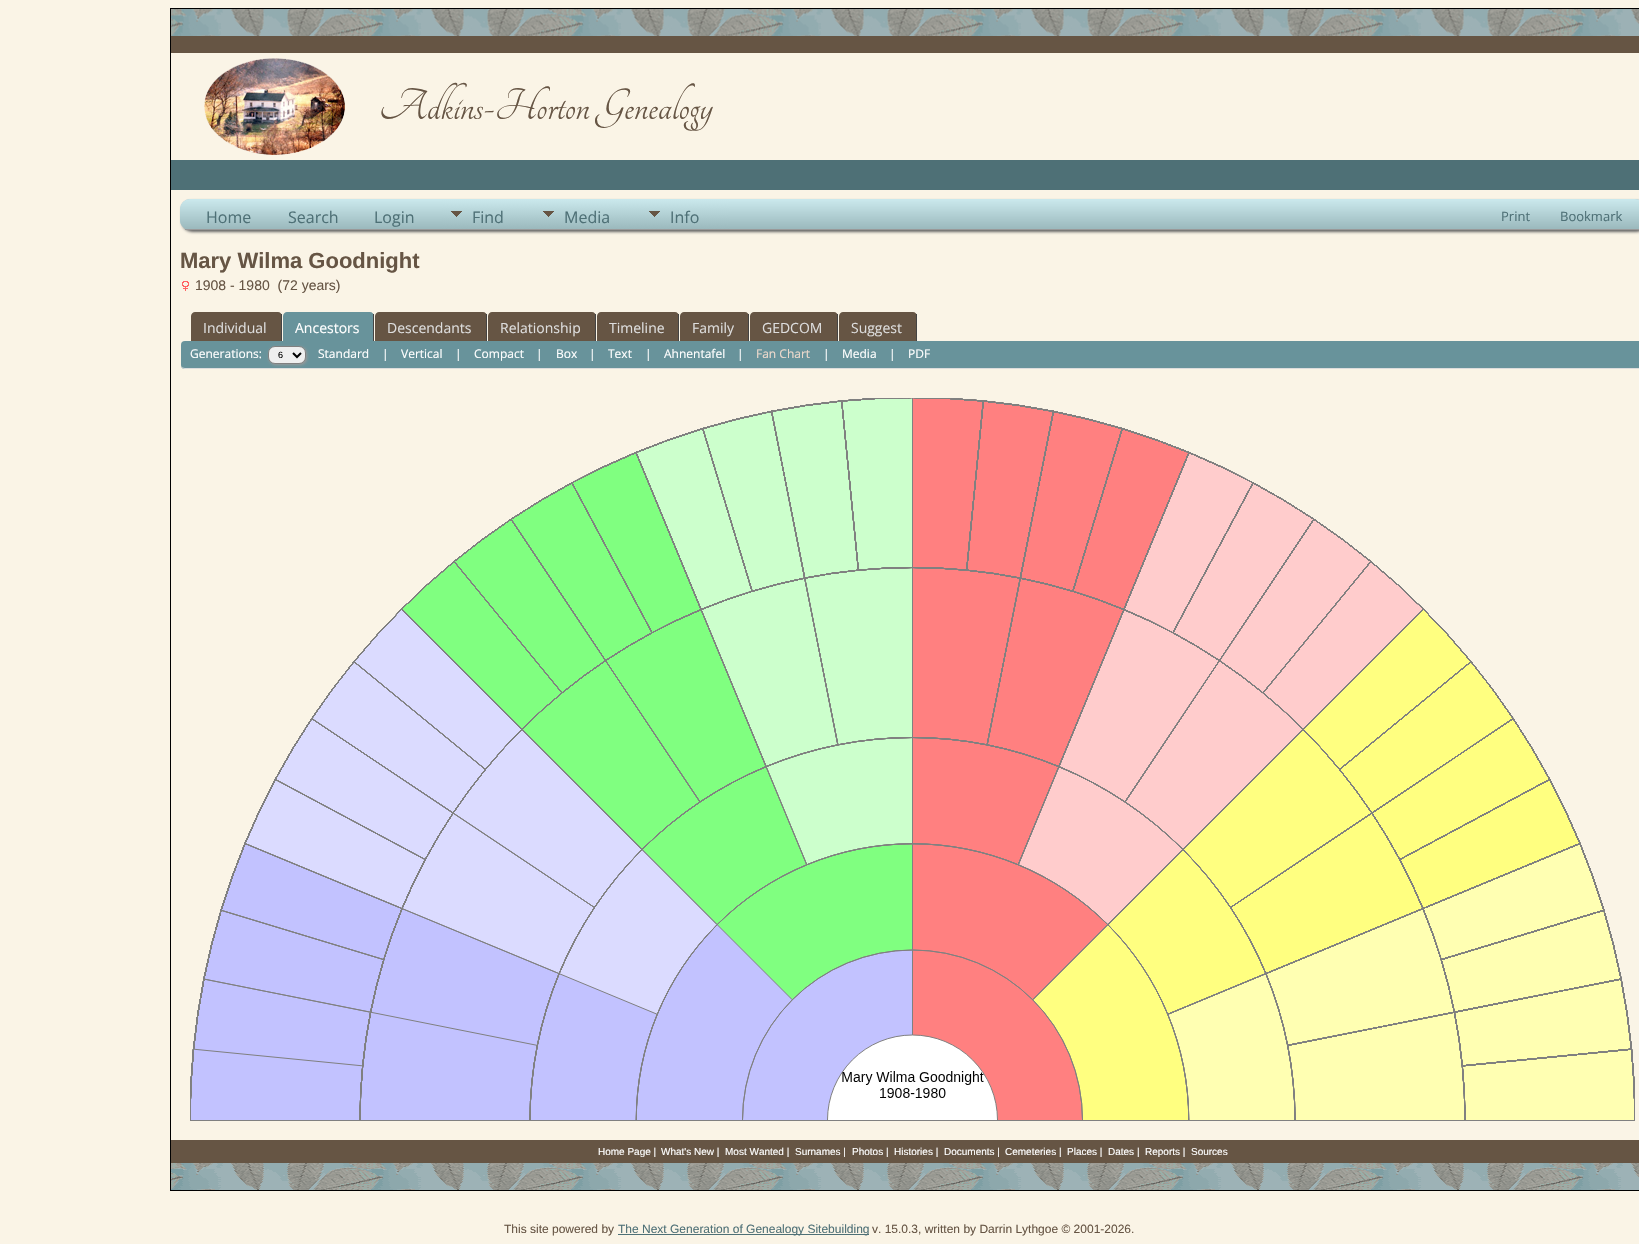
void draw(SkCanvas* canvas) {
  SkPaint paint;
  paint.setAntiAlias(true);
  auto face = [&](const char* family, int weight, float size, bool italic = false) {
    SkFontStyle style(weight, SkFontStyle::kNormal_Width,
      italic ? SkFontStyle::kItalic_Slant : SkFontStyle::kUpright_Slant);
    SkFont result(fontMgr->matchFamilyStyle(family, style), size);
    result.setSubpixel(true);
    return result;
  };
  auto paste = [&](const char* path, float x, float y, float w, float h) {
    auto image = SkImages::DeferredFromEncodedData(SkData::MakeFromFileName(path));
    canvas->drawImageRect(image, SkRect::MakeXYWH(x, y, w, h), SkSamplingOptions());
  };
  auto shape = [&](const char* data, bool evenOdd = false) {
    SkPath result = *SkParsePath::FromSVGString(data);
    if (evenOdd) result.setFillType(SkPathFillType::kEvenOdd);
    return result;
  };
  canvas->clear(0xfffaf4e6);
  {
    const struct { float x, y, w, h; SkColor color; } items[] = {
      {170, 8, 1469, 1, 0xff000000},
      {170, 1190, 1469, 1, 0xff000000},
      {170, 8, 1, 1183, 0xff000000},
    };
    for (auto [x, y, w, h, color] : items) {
      paint.setColor(color);
      canvas->drawRect(SkRect::MakeXYWH(x, y, w, h), paint);
    }
  }
  paste("img/1.png", 171, 9, 1468, 27);
  paint.setColor(0xff665544);
  canvas->drawRect(SkRect::MakeXYWH(171, 36, 1468, 17), paint);
  paste("img/2.png", 204, 58, 141, 97);
  paint.setColor(0xff4e7076);
  canvas->drawRect(SkRect::MakeXYWH(171, 160, 1468, 30), paint);
  paint.setColor(0xff666666);
  paint.setMaskFilter(SkMaskFilter::MakeBlur(kNormal_SkBlurStyle, 1.5f));
  canvas->drawRoundRect(SkRect::MakeXYWH(182, 201, 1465, 31), 10, 10, paint);
  paint.setMaskFilter(nullptr);
  paint.setColor(0xffb4d1d6);
  canvas->drawRoundRect(SkRect::MakeXYWH(180, 199, 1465, 31), 10, 10, paint);
  canvas->save();
  canvas->clipPath(shape("M190 199H1635C1640.5 199 1645 203.5 1645 209V220C1645 225.5 1640.5 230 1635 230H190C184.5 230 180 225.5 180 220V209C180 203.5 184.5 199 190 199Z"), true);
  {
    const SkColor colors[] = {0xffcbe9ed, 0xff9bb9bd};
    const float stops[] = {0, 1};
    const SkPoint ends[] = {{913, 199}, {913, 229}};
    paint.setShader(SkGradientShader::MakeLinear(ends, colors, stops, 2, SkTileMode::kClamp));
    paint.setAlpha(255);
  }
  canvas->drawPath(shape("M190 199H1635C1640.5 199 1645 203.5 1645 209V229H180V209C180 203.5 184.5 199 190 199Z"), paint);
  canvas->restore();
  paint.setShader(nullptr);
  paint.setColor(0xff999999);
  canvas->drawRect(SkRect::MakeXYWH(185, 229, 1454, 1), paint);
  paste("img/3.png", 442, 199, 92, 30);
  paste("img/4.png", 534, 199, 106, 30);
  paste("img/5.png", 640, 199, 89, 30);
  paste("img/6.png", 182, 281, 7, 10);
  paint.setColor(0xff665544);
  canvas->drawPath(shape("M195 312H278C280 312 282 314 282 316V341H191V316C191 314 193 312 195 312Z"), paint);
  paint.setColor(0xff444444);
  canvas->drawRect(SkRect::MakeXYWH(281, 314, 1, 27), paint);
  paint.setColor(0xff68939b);
  canvas->drawPath(shape("M287 312H370C372 312 374 314 374 316V341H283V316C283 314 285 312 287 312Z"), paint);
  paint.setColor(0xff444444);
  canvas->drawRect(SkRect::MakeXYWH(373, 314, 1, 27), paint);
  paint.setColor(0xff665544);
  canvas->drawPath(shape("M379 312H483C485 312 487 314 487 316V341H375V316C375 314 377 312 379 312Z"), paint);
  paint.setColor(0xff444444);
  canvas->drawRect(SkRect::MakeXYWH(486, 314, 1, 27), paint);
  paint.setColor(0xff665544);
  canvas->drawPath(shape("M492 312H592C594 312 596 314 596 316V341H488V316C488 314 490 312 492 312Z"), paint);
  paint.setColor(0xff444444);
  canvas->drawRect(SkRect::MakeXYWH(595, 314, 1, 27), paint);
  paint.setColor(0xff665544);
  canvas->drawPath(shape("M601 312H675C677 312 679 314 679 316V341H597V316C597 314 599 312 601 312Z"), paint);
  paint.setColor(0xff444444);
  canvas->drawRect(SkRect::MakeXYWH(678, 314, 1, 27), paint);
  paint.setColor(0xff665544);
  canvas->drawPath(shape("M684 312H745C747 312 749 314 749 316V341H680V316C680 314 682 312 684 312Z"), paint);
  paint.setColor(0xff444444);
  canvas->drawRect(SkRect::MakeXYWH(748, 314, 1, 27), paint);
  paint.setColor(0xff665544);
  canvas->drawPath(shape("M754 312H834C836 312 838 314 838 316V341H750V316C750 314 752 312 754 312Z"), paint);
  paint.setColor(0xff444444);
  canvas->drawRect(SkRect::MakeXYWH(837, 314, 1, 27), paint);
  paint.setColor(0xff665544);
  canvas->drawPath(shape("M843 312H913C915 312 917 314 917 316V341H839V316C839 314 841 312 843 312Z"), paint);
  paint.setColor(0xff444444);
  canvas->drawRect(SkRect::MakeXYWH(916, 314, 1, 27), paint);
  paint.setColor(0xff68939b);
  canvas->drawRoundRect(SkRect::MakeXYWH(181, 341, 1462, 28), 4, 4, paint);
  paint.setColor(0xffdddddd);
  canvas->drawPath(shape("M185 341H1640C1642 341 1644 343 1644 345V365C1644 367 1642 369 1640 369H185C183 369 181 367 181 365V345C181 343 183 341 185 341ZM185 341H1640C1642 341 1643 343 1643 345V365C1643 367 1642 368 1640 368H185C183 368 181 367 181 365V345C181 343 183 341 185 341Z", true), paint);
  paint.setColor(0xff999999);
  paint.setMaskFilter(SkMaskFilter::MakeBlur(kNormal_SkBlurStyle, 1.5f));
  canvas->drawRoundRect(SkRect::MakeXYWH(269, 347, 38, 18), 7, 7, paint);
  paint.setMaskFilter(nullptr);
  paint.setColor(0xffefefef);
  canvas->drawRoundRect(SkRect::MakeXYWH(268.5f, 346.5f, 37, 17), 6.5f, 6.5f, paint);
  paint.setStroke(true);
  paint.setStrokeWidth(1);
  paint.setColor(0xff808080);
  canvas->drawRoundRect(SkRect::MakeXYWH(268.5f, 346.5f, 37, 17), 6.5f, 6.5f, paint);
  paint.setStrokeWidth(2);
  paint.setColor(0xff000000);
  canvas->drawPath(shape("M293 353L297 357L301 353"), paint);
  paste("img/7.png", 190, 398, 1445, 722);
  paint.setStroke(false);
  paint.setColor(0xff808080);
  canvas->drawRect(SkRect::MakeXYWH(190, 1120, 1445, 1), paint);
  paint.setColor(0xff665544);
  canvas->drawRect(SkRect::MakeXYWH(171, 1140, 1468, 23), paint);
  paste("img/8.png", 171, 1163, 1468, 27);
  paint.setColor(0xff4e7076);
  canvas->drawRect(SkRect::MakeXYWH(618, 1234, 251, 1), paint);
  auto f0 = face("Tangerine", 400, 48);
  paint.setColor(0xff665544);
  canvas->drawString("Adkins-Horton Genealogy", 379, 119, f0, paint);
  auto f1 = face("Open Sans", 400, 16);
  paint.setColor(0xff4e7076);
  {
    const struct { const char* s; float x, y; } items[] = {
      {"Home", 206, 223},
      {"Search", 288, 223},
      {"Login", 374, 223},
      {"Find", 472, 223},
      {"Media", 564, 223},
      {"Info", 670, 223},
    };
    for (auto [s, x, y] : items) {
      canvas->drawString(s, x, y, f1, paint);
    }
  }
  auto f2 = face("Open Sans", 400, 13);
  canvas->drawString("Print", 1501, 221, f2, paint);
  canvas->drawString("Bookmark", 1560, 221, f2, paint);
  auto f3 = face("Liberation Sans", 700, 22);
  paint.setColor(0xff665544);
  canvas->drawString("Mary Wilma Goodnight", 180, 268, f3, paint);
  auto f4 = face("Liberation Sans", 400, 14);
  canvas->drawString("1908 - 1980  (72 years)", 195, 290, f4, paint);
  auto f5 = face("Open Sans", 400, 14);
  paint.setColor(0xffdddddd);
  canvas->drawString("Individual", 203, 333, f5, paint);
  paint.setColor(0xffffffff);
  canvas->drawString("Ancestors", 295, 333, f5, paint);
  paint.setColor(0xffdddddd);
  {
    const struct { const char* s; float x, y; } items[] = {
      {"Descendants", 387, 333},
      {"Relationship", 500, 333},
      {"Timeline", 609, 333},
      {"Family", 692, 333},
      {"GEDCOM", 762, 333},
      {"Suggest", 851, 333},
    };
    for (auto [s, x, y] : items) {
      canvas->drawString(s, x, y, f5, paint);
    }
  }
  auto f6 = face("Open Sans", 400, 12);
  paint.setColor(0xffffffff);
  canvas->drawString("Generations:", 190, 358, f6, paint);
  auto f7 = face("Liberation Sans", 400, 9);
  paint.setColor(0xff000000);
  canvas->drawString("6", 278, 358, f7, paint);
  paint.setColor(0xffffffff);
  {
    const struct { const char* s; float x, y; } items[] = {
      {"Standard", 318, 358},
      {"|", 382, 358},
      {"Vertical", 401, 358},
      {"|", 455, 358},
      {"Compact", 474, 358},
      {"|", 536, 358},
      {"Box", 556, 358},
      {"|", 589, 358},
      {"Text", 608, 358},
      {"|", 645, 358},
      {"Ahnentafel", 664, 358},
      {"|", 737, 358},
    };
    for (auto [s, x, y] : items) {
      canvas->drawString(s, x, y, f6, paint);
    }
  }
  paint.setColor(0xffecd9cc);
  canvas->drawString("Fan Chart", 756, 358, f6, paint);
  paint.setColor(0xffffffff);
  {
    const struct { const char* s; float x, y; } items[] = {
      {"|", 823, 358},
      {"Media", 842, 358},
      {"|", 889, 358},
      {"PDF", 908, 358},
    };
    for (auto [s, x, y] : items) {
      canvas->drawString(s, x, y, f6, paint);
    }
  }
  auto f8 = face("Liberation Sans", 400, 10);
  {
    const struct { const char* s; float x, y; } items[] = {
      {"Home Page |", 598, 1155},
      {"What's New |", 661, 1155},
      {"Most Wanted |", 725, 1155},
      {"Surnames |", 795, 1155},
      {"Photos |", 852, 1155},
      {"Histories |", 894, 1155},
      {"Documents |", 944, 1155},
      {"Cemeteries |", 1005, 1155},
      {"Places |", 1067, 1155},
      {"Dates |", 1108, 1155},
      {"Reports |", 1145, 1155},
      {"Sources", 1191, 1155},
    };
    for (auto [s, x, y] : items) {
      canvas->drawString(s, x, y, f8, paint);
    }
  }
  auto f9 = face("Liberation Sans", 400, 12);
  paint.setColor(0xff665544);
  canvas->drawString("This site powered by", 504, 1233, f9, paint);
  paint.setColor(0xff4e7076);
  canvas->drawString("The Next Generation of Genealogy Sitebuilding", 618, 1233, f9, paint);
  paint.setColor(0xff665544);
  canvas->drawString("v. 15.0.3, written by Darrin Lythgoe © 2001-2026.", 872, 1233, f9, paint);
}
